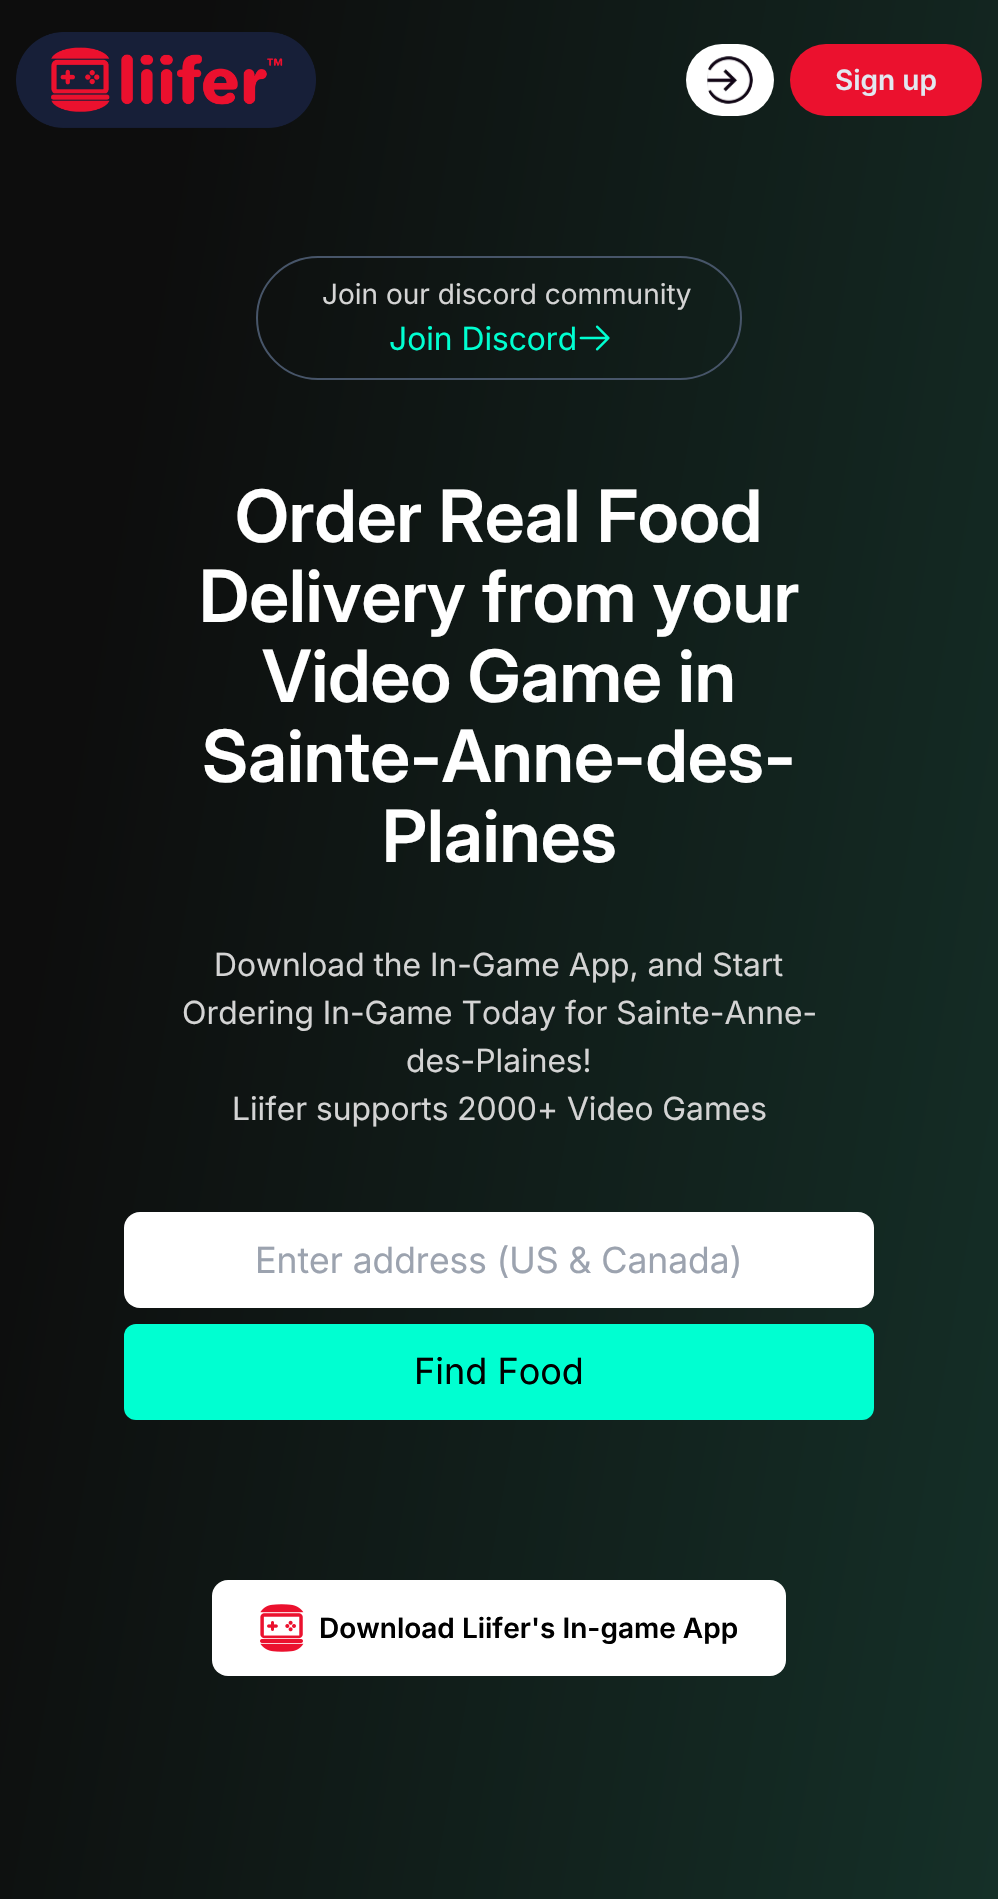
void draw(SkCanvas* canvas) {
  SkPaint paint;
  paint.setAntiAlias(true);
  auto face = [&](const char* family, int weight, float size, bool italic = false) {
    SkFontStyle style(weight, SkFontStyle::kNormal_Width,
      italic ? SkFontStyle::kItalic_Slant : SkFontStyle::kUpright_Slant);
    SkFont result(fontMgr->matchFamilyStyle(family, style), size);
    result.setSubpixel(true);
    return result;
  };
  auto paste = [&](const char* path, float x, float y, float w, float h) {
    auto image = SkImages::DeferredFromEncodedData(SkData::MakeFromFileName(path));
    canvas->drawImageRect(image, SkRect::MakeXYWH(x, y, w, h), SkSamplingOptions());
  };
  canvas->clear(0xffffffff);
  {
    const SkColor colors[] = {0xff0d0d0d, 0xff153028};
    const float stops[] = {0.15f, 1};
    const SkPoint ends[] = {{-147, 836}, {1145, 1064}};
    paint.setShader(SkGradientShader::MakeLinear(ends, colors, stops, 2, SkTileMode::kClamp));
    paint.setAlpha(255);
  }
  canvas->drawRect(SkRect::MakeXYWH(0, 0, 998, 1899), paint);
  paste("img/1.png", 16, 32, 300, 96);
  paste("img/2.png", 686, 44, 88, 72);
  paint.setShader(nullptr);
  paint.setColor(0xffeb112e);
  canvas->drawRoundRect(SkRect::MakeXYWH(790, 44, 192, 72), 36, 36, paint);
  paint.setStroke(true);
  paint.setStrokeWidth(2);
  paint.setColor(0xff475569);
  canvas->drawRoundRect(SkRect::MakeXYWH(257, 257, 484, 122), 61, 61, paint);
  paste("img/3.png", 579, 325, 31, 26);
  paint.setStroke(false);
  paint.setColor(0xffffffff);
  canvas->drawRoundRect(SkRect::MakeXYWH(124, 1212, 750, 96), 16, 16, paint);
  paint.setColor(0xff00ffd1);
  canvas->drawRoundRect(SkRect::MakeXYWH(124, 1324, 750, 96), 12, 12, paint);
  paint.setColor(0xffffffff);
  canvas->drawRoundRect(SkRect::MakeXYWH(212, 1580, 574, 96), 16, 16, paint);
  paste("img/4.png", 260, 1604, 44, 48);
  auto f0 = face("Inter", 600, 28);
  paint.setColor(0xffe2e8f0);
  canvas->drawString("Sign up", 835, 90, f0, paint);
  auto f1 = face("Inter", 400, 28);
  paint.setColor(0xffd4d4d4);
  canvas->drawString("Join our discord community", 322, 304, f1, paint);
  auto f2 = face("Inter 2", 400, 32);
  paint.setColor(0xff00ffd1);
  canvas->drawString("Join Discord", 389, 350, f2, paint);
  auto f3 = face("Inter 2", 600, 72);
  paint.setColor(0xffffffff);
  {
    const struct { const char* s; float x, y; } items[] = {
      {"Order Real Food", 235, 542},
      {"Delivery from your", 199, 622},
      {"Video Game in", 262, 702},
      {"Sainte-Anne-des-", 202, 782},
      {"Plaines", 382, 862},
    };
    for (auto [s, x, y] : items) {
      canvas->drawString(s, x, y, f3, paint);
    }
  }
  paint.setColor(0xffd4d4d4);
  {
    const struct { const char* s; float x, y; } items[] = {
      {"Download the In-Game App, and Start", 214, 976},
      {"Ordering In-Game Today for Sainte-Anne-", 182, 1024},
      {"des-Plaines!", 406, 1072},
      {"Liifer supports 2000+ Video Games", 232, 1120},
    };
    for (auto [s, x, y] : items) {
      canvas->drawString(s, x, y, f2, paint);
    }
  }
  auto f4 = face("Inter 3", 400, 36);
  paint.setColor(0xff9ca3af);
  canvas->drawString("Enter address (US & Canada)", 255, 1273, f4, paint);
  auto f5 = face("Inter", 400, 36);
  paint.setColor(0xff000000);
  canvas->drawString("Find Food", 414, 1384, f5, paint);
  canvas->drawString("Download Liifer's In-game App", 319, 1638, f0, paint);
}
